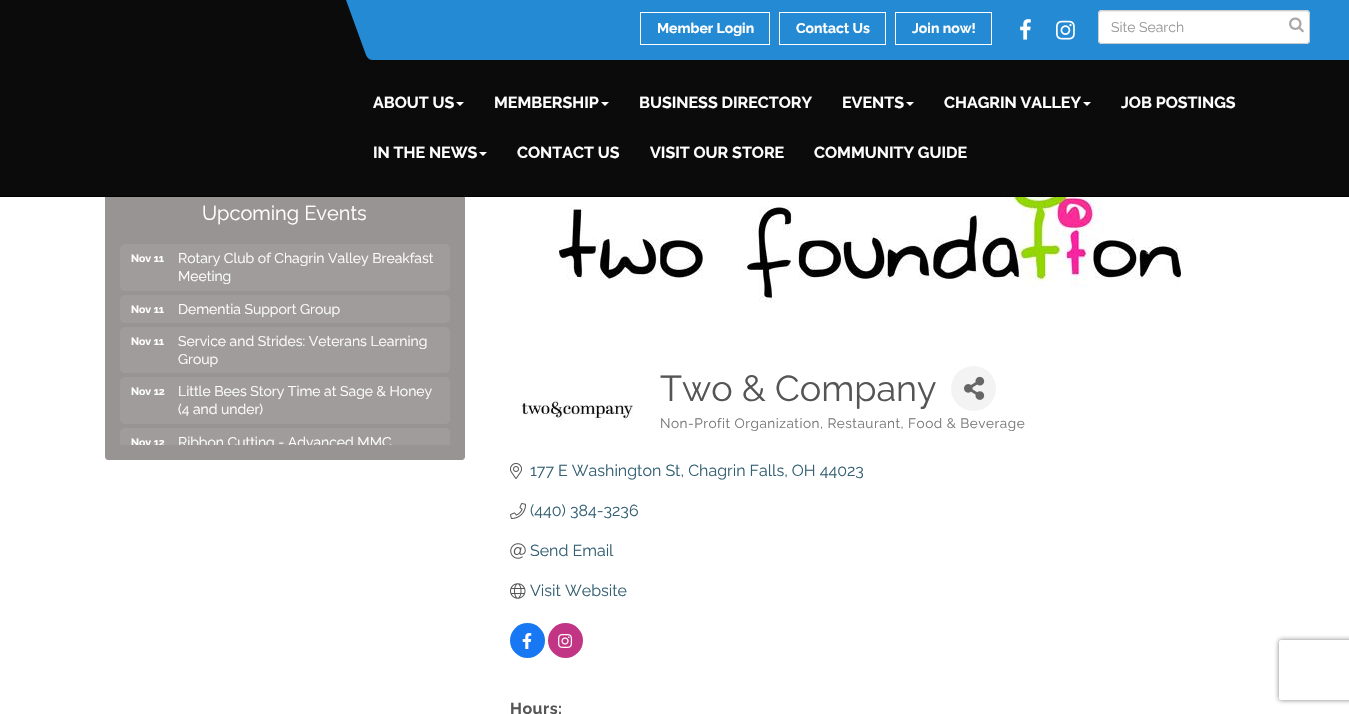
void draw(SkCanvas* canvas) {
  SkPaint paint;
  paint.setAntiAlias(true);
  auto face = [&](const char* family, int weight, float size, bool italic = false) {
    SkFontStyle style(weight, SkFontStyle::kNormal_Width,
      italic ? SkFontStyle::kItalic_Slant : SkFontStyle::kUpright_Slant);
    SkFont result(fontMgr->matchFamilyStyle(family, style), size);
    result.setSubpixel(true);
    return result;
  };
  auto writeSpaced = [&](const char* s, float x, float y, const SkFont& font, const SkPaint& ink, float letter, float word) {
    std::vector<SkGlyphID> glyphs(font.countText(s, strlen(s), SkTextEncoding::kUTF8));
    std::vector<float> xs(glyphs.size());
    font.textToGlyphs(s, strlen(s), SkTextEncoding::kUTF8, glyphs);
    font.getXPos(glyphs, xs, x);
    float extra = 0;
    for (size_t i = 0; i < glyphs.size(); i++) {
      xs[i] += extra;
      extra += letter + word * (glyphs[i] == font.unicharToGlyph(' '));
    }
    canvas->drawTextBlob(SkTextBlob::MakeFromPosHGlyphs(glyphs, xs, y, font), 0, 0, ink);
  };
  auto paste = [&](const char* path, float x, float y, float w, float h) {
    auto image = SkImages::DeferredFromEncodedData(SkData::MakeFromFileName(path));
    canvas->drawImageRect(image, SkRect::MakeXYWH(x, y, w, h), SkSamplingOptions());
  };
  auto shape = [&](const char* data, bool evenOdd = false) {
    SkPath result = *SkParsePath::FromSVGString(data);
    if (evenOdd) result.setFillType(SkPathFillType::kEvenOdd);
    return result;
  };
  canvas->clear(0xffffffff);
  paint.setColor(0xff0b0b0c);
  canvas->drawRect(SkRect::MakeXYWH(0, 0, 1349, 196), paint);
  paint.setColor(0xff000000);
  canvas->drawRect(SkRect::MakeXYWH(0, 196, 1349, 1), paint);
  paint.setColor(0xff248ad3);
  canvas->drawPath(shape("M346 0H1299L1321 60H373C370 60 367 58 366 55Z"), paint);
  paint.setStroke(true);
  paint.setStrokeWidth(1);
  paint.setColor(0xffffffff);
  canvas->drawRect(SkRect::MakeXYWH(640.5f, 12.5f, 129, 32), paint);
  canvas->drawRect(SkRect::MakeXYWH(779.5f, 12.5f, 106, 32), paint);
  canvas->drawRect(SkRect::MakeXYWH(895.5f, 12.5f, 96, 32), paint);
  paste("img/1.png", 1020, 19, 11, 21);
  paste("img/2.png", 1056, 20, 19, 20);
  paint.setStroke(false);
  paint.setColor(0xff248ad3);
  canvas->drawPath(shape("M1298 0H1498L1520 60H1320Z"), paint);
  paint.setColor(0xffffffff);
  canvas->drawRoundRect(SkRect::MakeXYWH(1098, 10, 212, 34), 4, 4, paint);
  paint.setColor(0xffececec);
  canvas->drawPath(shape("M1102 12H1306C1308 12 1309 13 1309 15V14C1309 12 1308 11 1306 11H1102C1100 11 1099 12 1099 14V15C1099 13 1100 12 1102 12Z"), paint);
  paint.setStroke(true);
  paint.setColor(0xffcccccc);
  canvas->drawRoundRect(SkRect::MakeXYWH(1098.5f, 10.5f, 211, 33), 3.5f, 3.5f, paint);
  paste("img/3.png", 1289, 17, 15, 16);
  paint.setStroke(false);
  paint.setColor(0xffffffff);
  canvas->drawPath(shape("M456 102H464L460 106Z"), paint);
  canvas->drawPath(shape("M601 102H609L605 106Z"), paint);
  canvas->drawPath(shape("M906 102H914L910 106Z"), paint);
  canvas->drawPath(shape("M1083 102H1091L1087 106Z"), paint);
  canvas->drawPath(shape("M479 152H487L483 156Z"), paint);
  paint.setColor(0xff999494);
  canvas->drawRect(SkRect::MakeXYWH(105, 197, 360, 28), paint);
  canvas->drawPath(shape("M105 225H465V457C465 458.5 463.5 460 462 460H108C106.5 460 105 458.5 105 457Z"), paint);
  paint.setColor(0xffa09c9c);
  canvas->drawRoundRect(SkRect::MakeXYWH(120, 244, 330, 47), 5, 5, paint);
  canvas->drawRoundRect(SkRect::MakeXYWH(120, 295, 330, 28), 5, 5, paint);
  canvas->drawRoundRect(SkRect::MakeXYWH(120, 327, 330, 46), 5, 5, paint);
  canvas->drawRoundRect(SkRect::MakeXYWH(120, 377, 330, 47), 5, 5, paint);
  canvas->drawPath(shape("M125 428H445C448 428 450 430 450 433V445H120V433C120 430 122 428 125 428Z"), paint);
  paste("img/4.png", 559, 197, 622, 106);
  paste("img/5.png", 521, 399, 112, 22);
  paint.setColor(0xfff3f3f3);
  canvas->drawCircle(973.5f, 388.5f, 22.5f, paint);
  paste("img/6.png", 964, 376, 21, 24);
  paste("img/7.png", 510, 463, 12, 16);
  paste("img/8.png", 510, 503, 16, 16);
  paste("img/9.png", 510, 543, 16, 16);
  paste("img/10.png", 510, 583, 16, 16);
  paint.setColor(0xff1877f2);
  canvas->drawCircle(527.5f, 640.5f, 17.5f, paint);
  paste("img/11.png", 522, 633, 10, 16);
  paint.setColor(0xffc13584);
  canvas->drawCircle(565.5f, 640.5f, 17.5f, paint);
  paste("img/12.png", 558, 634, 15, 14);
  canvas->save();
  canvas->clipPath(shape("M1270 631H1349V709H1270ZM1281 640H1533C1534 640 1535 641 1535 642V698C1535 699 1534 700 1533 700H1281C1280 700 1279 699 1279 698V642C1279 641 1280 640 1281 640Z", true), true);
  paint.setColor(0xff808080);
  paint.setMaskFilter(SkMaskFilter::MakeBlur(kNormal_SkBlurStyle, 2.5f));
  canvas->drawRoundRect(SkRect::MakeXYWH(1279, 640, 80, 60), 2, 2, paint);
  paint.setMaskFilter(nullptr);
  canvas->restore();
  auto f0 = face("Raleway", 700, 14);
  paint.setColor(0xffffffff);
  {
    const struct { const char* s; float x, y; } items[] = {
      {"Member Login", 657, 33},
      {"Contact Us", 796, 33},
      {"Join now!", 912, 33},
    };
    for (auto [s, x, y] : items) {
      canvas->drawString(s, x, y, f0, paint);
    }
  }
  auto f1 = face("Raleway", 400, 14);
  paint.setColor(0xff999999);
  canvas->drawString("Site Search", 1111, 32, f1, paint);
  auto f2 = face("Raleway", 700, 16);
  paint.setColor(0xffffffff);
  {
    const struct { const char* s; float x, y; } items[] = {
      {"ABOUT US", 373, 108},
      {"MEMBERSHIP", 494, 108},
      {"BUSINESS DIRECTORY", 639, 108},
      {"EVENTS", 842, 108},
      {"CHAGRIN VALLEY", 944, 108},
      {"JOB POSTINGS", 1121, 108},
      {"IN THE NEWS", 373, 158},
      {"CONTACT US", 517, 158},
      {"VISIT OUR STORE", 650, 158},
      {"COMMUNITY GUIDE", 814, 158},
    };
    for (auto [s, x, y] : items) {
      canvas->drawString(s, x, y, f2, paint);
    }
  }
  auto f3 = face("Raleway", 400, 20);
  canvas->drawString("Upcoming Events", 202, 220, f3, paint);
  auto f4 = face("Raleway", 700, 10.5f);
  canvas->drawString("Nov 11", 131, 262, f4, paint);
  canvas->drawString("Rotary Club of Chagrin Valley Breakfast", 178, 263, f1, paint);
  canvas->drawString("Meeting", 178, 281, f1, paint);
  canvas->drawString("Nov 11", 131, 313, f4, paint);
  canvas->drawString("Dementia Support Group", 178, 314, f1, paint);
  canvas->drawString("Nov 11", 131, 345, f4, paint);
  canvas->drawString("Service and Strides: Veterans Learning", 178, 346, f1, paint);
  canvas->drawString("Group", 178, 364, f1, paint);
  canvas->drawString("Nov 12", 131, 395, f4, paint);
  canvas->drawString("Little Bees Story Time at Sage & Honey", 178, 396, f1, paint);
  canvas->drawString("(4 and under)", 178, 414, f1, paint);
  canvas->save();
  canvas->clipRect(SkRect::MakeXYWH(120, 240, 330, 205));
  canvas->drawString("Nov 12", 131, 446, f4, paint);
  canvas->drawString("Ribbon Cutting - Advanced MMC", 178, 447, f1, paint);
  canvas->restore();
  auto f5 = face("Raleway", 400, 36);
  paint.setColor(0xff555555);
  canvas->drawString("Two & Company", 660, 401, f5, paint);
  auto f6 = face("Raleway", 400, 13.6f);
  paint.setColor(0xff777777);
  writeSpaced("Non-Profit Organization, Restaurant, Food & Beverage", 660, 428, f6, paint, 0.5f, 0);
  auto f7 = face("Raleway", 400, 16);
  paint.setColor(0xff346073);
  {
    const struct { const char* s; float x, y; } items[] = {
      {"177 E Washington St, Chagrin Falls, OH 44023", 530, 476},
      {"(440) 384-3236", 530, 516},
      {"Send Email", 530, 556},
      {"Visit Website", 530, 596},
    };
    for (auto [s, x, y] : items) {
      canvas->drawString(s, x, y, f7, paint);
    }
  }
  paint.setColor(0xff555555);
  writeSpaced("Hours:", 510, 714, f2, paint, 0.5f, 0);
}
